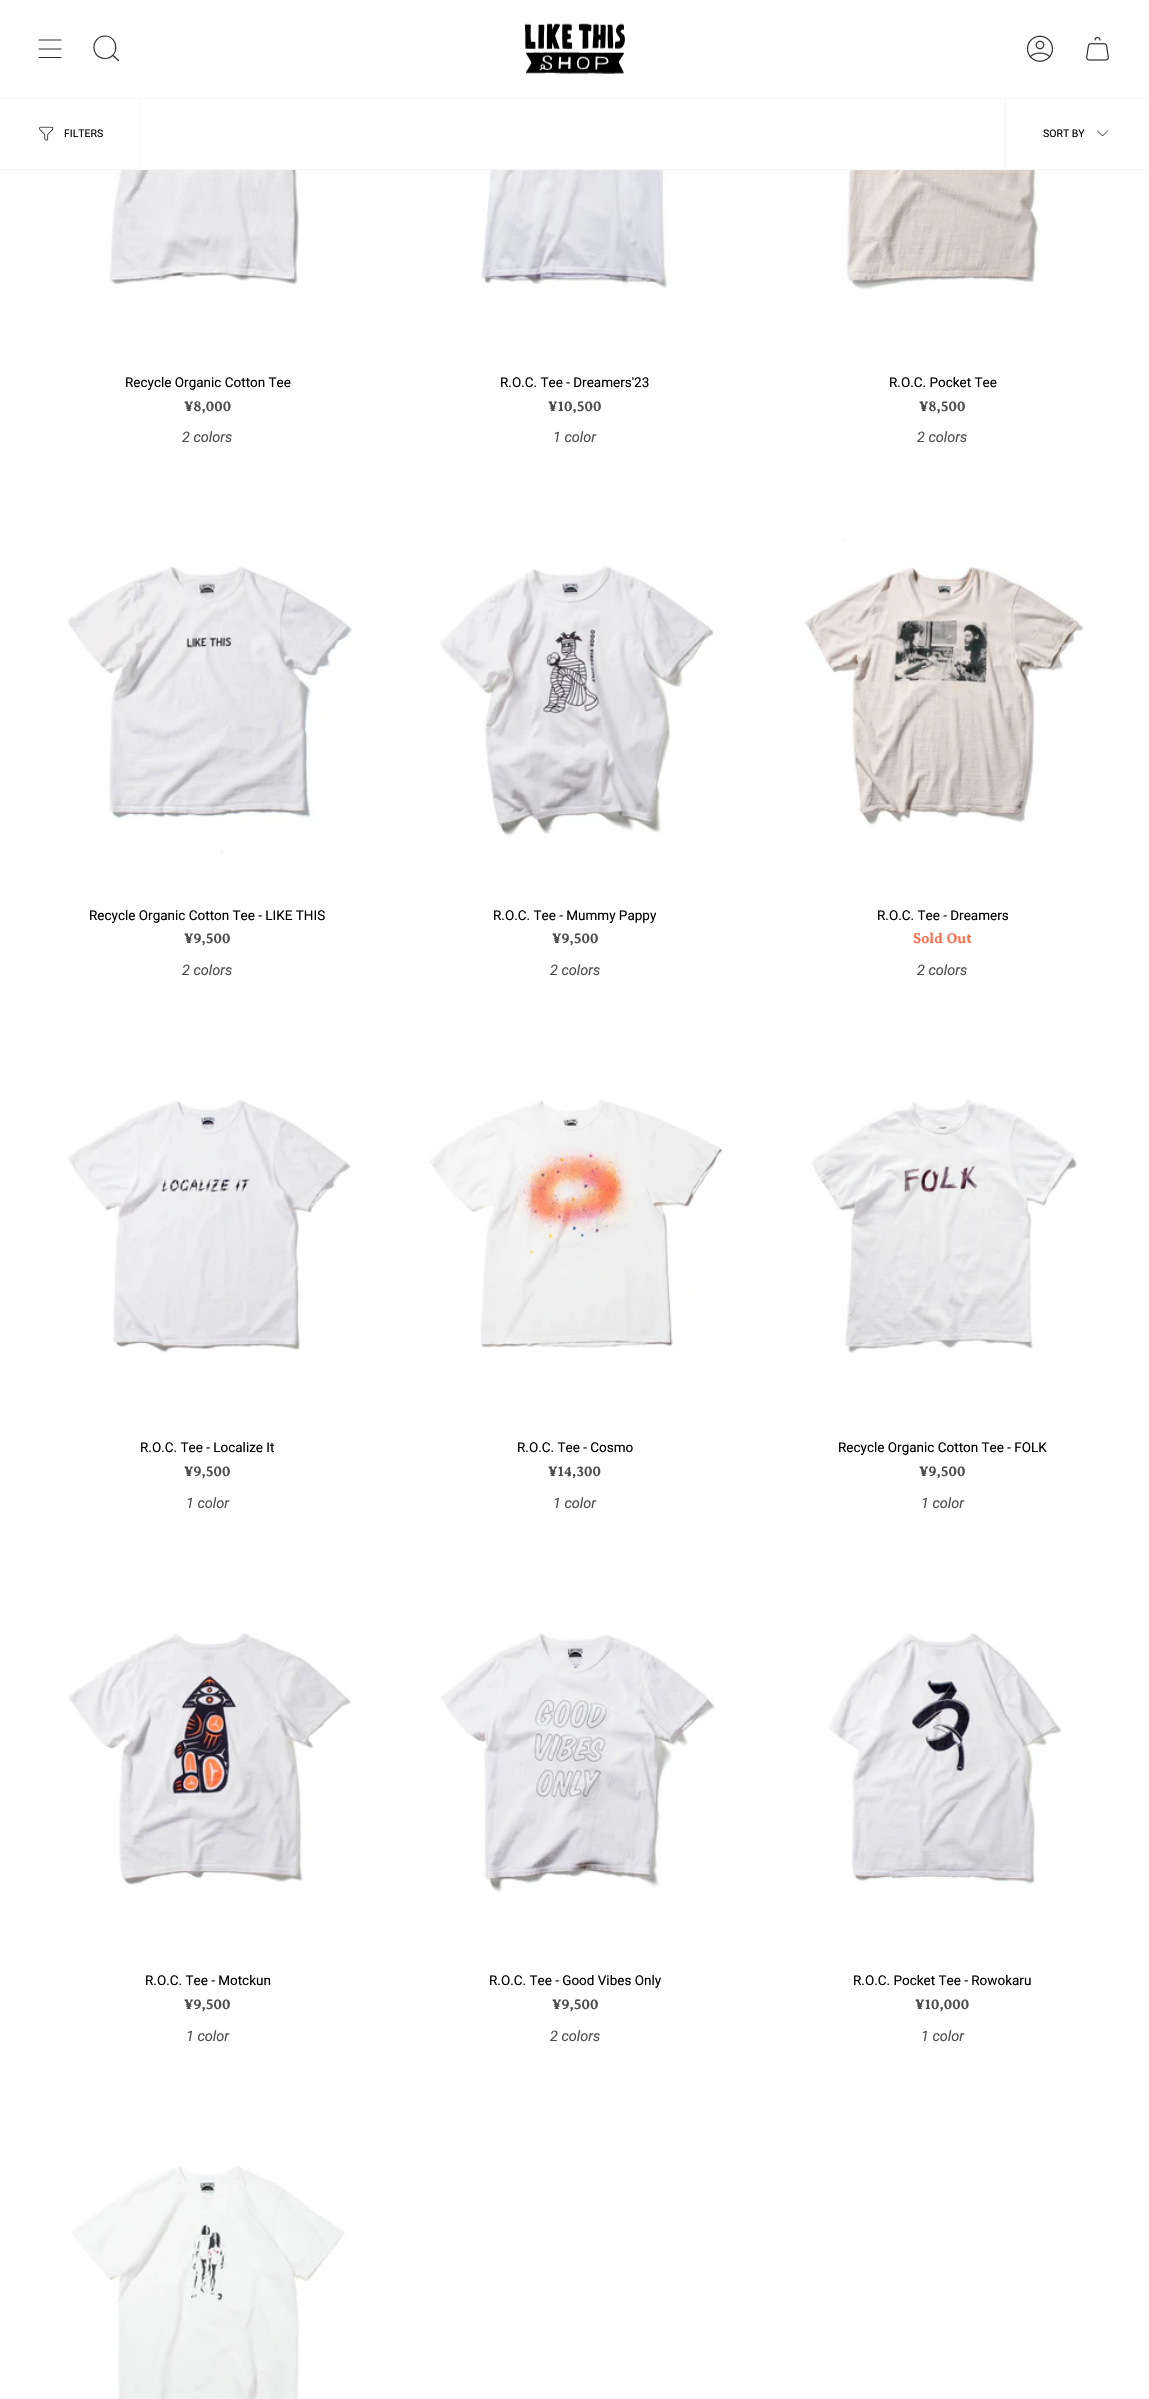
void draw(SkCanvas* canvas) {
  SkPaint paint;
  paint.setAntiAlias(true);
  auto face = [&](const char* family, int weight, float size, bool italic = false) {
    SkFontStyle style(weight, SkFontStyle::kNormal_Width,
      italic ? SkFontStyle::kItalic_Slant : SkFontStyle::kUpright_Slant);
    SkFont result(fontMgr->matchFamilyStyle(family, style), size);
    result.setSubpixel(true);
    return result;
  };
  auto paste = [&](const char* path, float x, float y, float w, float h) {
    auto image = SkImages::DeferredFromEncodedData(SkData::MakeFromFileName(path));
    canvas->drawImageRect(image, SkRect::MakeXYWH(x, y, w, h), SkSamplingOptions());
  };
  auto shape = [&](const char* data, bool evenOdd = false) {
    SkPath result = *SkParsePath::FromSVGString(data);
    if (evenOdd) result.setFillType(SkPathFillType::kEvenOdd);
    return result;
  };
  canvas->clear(0xffffffff);
  paint.setStroke(true);
  paint.setStrokeWidth(1.2f);
  paint.setStrokeCap(SkPaint::kRound_Cap);
  paint.setStrokeJoin(SkPaint::kRound_Join);
  paint.setColor(0xff2e2e2e);
  canvas->drawPath(shape("M39 40H61M39 49H61M39 57.5H61"), paint);
  paint.setStrokeCap(SkPaint::kButt_Cap);
  paint.setStrokeJoin(SkPaint::kMiter_Join);
  canvas->drawPath(shape("M105 36C119.5 36 119.5 59 104.5 58.5C90 57.5 90.5 36.5 105 36ZM112.5 55L119 61"), paint);
  paste("img/1.png", 525, 23, 100, 51);
  paste("img/2.png", 1026, 35, 28, 27);
  paste("img/3.png", 1086, 36, 23, 25);
  paint.setStroke(false);
  {
    const struct { float x, y, w, h; SkColor color; } items[] = {
      {0, 98, 1149, 1, 0xfff7f7f7},
      {0, 169, 1149, 1, 0xfff7f7f7},
      {140, 99, 1, 70, 0xfff7f7f7},
    };
    for (auto [x, y, w, h, color] : items) {
      paint.setColor(color);
      canvas->drawRect(SkRect::MakeXYWH(x, y, w, h), paint);
    }
  }
  paste("img/4.png", 39, 126, 15, 15);
  canvas->drawRect(SkRect::MakeXYWH(1005, 99, 1, 70), paint);
  paint.setStroke(true);
  paint.setStrokeWidth(0.8f);
  paint.setStrokeCap(SkPaint::kRound_Cap);
  paint.setStrokeJoin(SkPaint::kRound_Join);
  paint.setColor(0xff000000);
  canvas->drawPath(shape("M1097.5 131L1102.5 136L1107.5 131"), paint);
  paste("img/5.png", 76, 170, 265, 116);
  paste("img/6.png", 441, 170, 269, 119);
  paste("img/7.png", 804, 170, 286, 120);
  paste("img/8.png", 67, 565, 285, 289);
  paste("img/9.png", 440, 565, 274, 271);
  paste("img/10.png", 805, 538, 279, 287);
  paste("img/11.png", 67, 1099, 284, 257);
  paste("img/12.png", 429, 1099, 293, 252);
  paste("img/13.png", 811, 1099, 266, 254);
  paste("img/14.png", 68, 1633, 283, 252);
  paste("img/15.png", 441, 1633, 274, 260);
  paste("img/16.png", 828, 1633, 234, 252);
  paste("img/17.png", 71, 2165, 275, 234);
  auto f0 = face("Roboto", 400, 10.5f);
  paint.setStroke(false);
  canvas->drawString("FILTERS", 64, 137, f0, paint);
  canvas->drawString("SORT BY", 1043, 137, f0, paint);
  auto f1 = face("Roboto", 400, 13.5f);
  canvas->drawString("Recycle Organic Cotton Tee", 125, 387, f1, paint);
  auto f2 = face("Averia Serif Libre", 700, 14.5f);
  paint.setColor(0xff4d4d4d);
  canvas->drawString("¥8,000", 184, 411, f2, paint);
  auto f3 = face("Roboto", 400, 14.5f, true);
  canvas->drawString("2 colors", 182, 442, f3, paint);
  paint.setColor(0xff000000);
  canvas->drawString("R.O.C. Tee - Dreamers'23", 500, 387, f1, paint);
  paint.setColor(0xff4d4d4d);
  canvas->drawString("¥10,500", 548, 411, f2, paint);
  canvas->drawString("1 color", 553, 442, f3, paint);
  paint.setColor(0xff000000);
  canvas->drawString("R.O.C. Pocket Tee", 889, 387, f1, paint);
  paint.setColor(0xff4d4d4d);
  canvas->drawString("¥8,500", 919, 411, f2, paint);
  canvas->drawString("2 colors", 917, 442, f3, paint);
  paint.setColor(0xff000000);
  canvas->drawString("Recycle Organic Cotton Tee - LIKE THIS", 89, 920, f1, paint);
  paint.setColor(0xff4d4d4d);
  canvas->drawString("¥9,500", 184, 943, f2, paint);
  canvas->drawString("2 colors", 182, 975, f3, paint);
  paint.setColor(0xff000000);
  canvas->drawString("R.O.C. Tee - Mummy Pappy", 493, 920, f1, paint);
  paint.setColor(0xff4d4d4d);
  canvas->drawString("¥9,500", 552, 943, f2, paint);
  canvas->drawString("2 colors", 550, 975, f3, paint);
  paint.setColor(0xff000000);
  canvas->drawString("R.O.C. Tee - Dreamers", 877, 920, f1, paint);
  paint.setColor(0xffff6c4a);
  canvas->drawString("Sold Out", 913, 943, f2, paint);
  paint.setColor(0xff4d4d4d);
  canvas->drawString("2 colors", 917, 975, f3, paint);
  paint.setColor(0xff000000);
  canvas->drawString("R.O.C. Tee - Localize It", 140, 1452, f1, paint);
  paint.setColor(0xff4d4d4d);
  canvas->drawString("¥9,500", 184, 1476, f2, paint);
  canvas->drawString("1 color", 186, 1508, f3, paint);
  paint.setColor(0xff000000);
  canvas->drawString("R.O.C. Tee - Cosmo", 517, 1452, f1, paint);
  paint.setColor(0xff4d4d4d);
  canvas->drawString("¥14,300", 548, 1476, f2, paint);
  canvas->drawString("1 color", 553, 1508, f3, paint);
  paint.setColor(0xff000000);
  canvas->drawString("Recycle Organic Cotton Tee - FOLK", 838, 1452, f1, paint);
  paint.setColor(0xff4d4d4d);
  canvas->drawString("¥9,500", 919, 1476, f2, paint);
  canvas->drawString("1 color", 921, 1508, f3, paint);
  paint.setColor(0xff000000);
  canvas->drawString("R.O.C. Tee - Motckun", 145, 1985, f1, paint);
  paint.setColor(0xff4d4d4d);
  canvas->drawString("¥9,500", 184, 2009, f2, paint);
  canvas->drawString("1 color", 186, 2041, f3, paint);
  paint.setColor(0xff000000);
  canvas->drawString("R.O.C. Tee - Good Vibes Only", 489, 1985, f1, paint);
  paint.setColor(0xff4d4d4d);
  canvas->drawString("¥9,500", 552, 2009, f2, paint);
  canvas->drawString("2 colors", 550, 2041, f3, paint);
  paint.setColor(0xff000000);
  canvas->drawString("R.O.C. Pocket Tee - Rowokaru", 853, 1985, f1, paint);
  paint.setColor(0xff4d4d4d);
  canvas->drawString("¥10,000", 915, 2009, f2, paint);
  canvas->drawString("1 color", 921, 2041, f3, paint);
}
